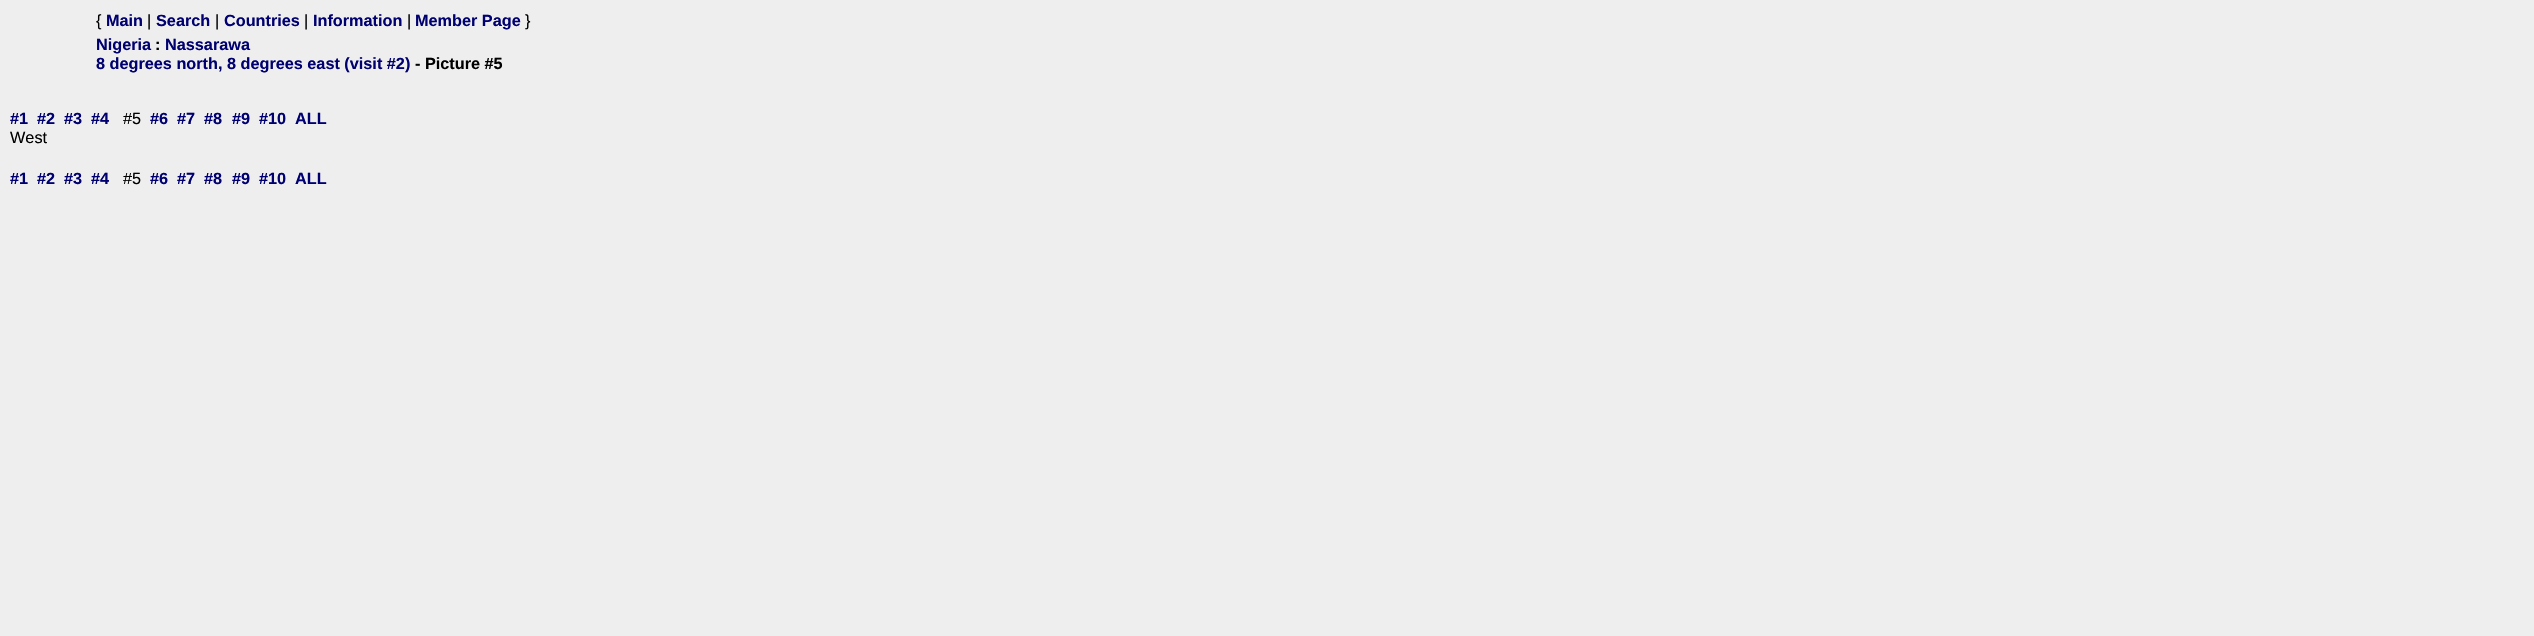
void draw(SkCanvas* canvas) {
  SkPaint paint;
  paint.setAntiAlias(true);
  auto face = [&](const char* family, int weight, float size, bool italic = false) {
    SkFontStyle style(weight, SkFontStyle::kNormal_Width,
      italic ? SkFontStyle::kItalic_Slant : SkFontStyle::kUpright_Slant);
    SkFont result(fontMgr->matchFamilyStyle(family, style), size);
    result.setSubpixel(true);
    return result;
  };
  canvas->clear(0xffeeeeee);
  auto f0 = face("Liberation Sans", 400, 16.25f);
  paint.setColor(0xff000000);
  canvas->drawString("{", 96, 26, f0, paint);
  auto f1 = face("Liberation Sans", 700, 16.25f);
  paint.setColor(0xff000070);
  canvas->drawString("Main", 106, 26, f1, paint);
  paint.setColor(0xff000000);
  canvas->drawString("|", 147, 26, f0, paint);
  paint.setColor(0xff000070);
  canvas->drawString("Search", 156, 26, f1, paint);
  paint.setColor(0xff000000);
  canvas->drawString("|", 215, 26, f0, paint);
  paint.setColor(0xff000070);
  canvas->drawString("Countries", 224, 26, f1, paint);
  paint.setColor(0xff000000);
  canvas->drawString("|", 304, 26, f0, paint);
  paint.setColor(0xff000070);
  canvas->drawString("Information", 313, 26, f1, paint);
  paint.setColor(0xff000000);
  canvas->drawString("|", 407, 26, f0, paint);
  paint.setColor(0xff000070);
  canvas->drawString("Member Page", 415, 26, f1, paint);
  paint.setColor(0xff000000);
  canvas->drawString("}", 525, 26, f0, paint);
  paint.setColor(0xff000070);
  canvas->drawString("Nigeria", 96, 50, f1, paint);
  paint.setColor(0xff000000);
  canvas->drawString(":", 155, 50, f1, paint);
  paint.setColor(0xff000070);
  canvas->drawString("Nassarawa", 165, 50, f1, paint);
  canvas->drawString("8 degrees north, 8 degrees east (visit #2)", 96, 69, f1, paint);
  paint.setColor(0xff000000);
  canvas->drawString("- Picture #5", 415, 69, f1, paint);
  paint.setColor(0xff000070);
  {
    const struct { const char* s; float x, y; } items[] = {
      {"#1", 10, 124},
      {"#2", 37, 124},
      {"#3", 64, 124},
      {"#4", 91, 124},
    };
    for (auto [s, x, y] : items) {
      canvas->drawString(s, x, y, f1, paint);
    }
  }
  paint.setColor(0xff000000);
  canvas->drawString("#5", 123, 124, f0, paint);
  paint.setColor(0xff000070);
  {
    const struct { const char* s; float x, y; } items[] = {
      {"#6", 150, 124},
      {"#7", 177, 124},
      {"#8", 204, 124},
      {"#9", 232, 124},
      {"#10", 259, 124},
      {"ALL", 295, 124},
    };
    for (auto [s, x, y] : items) {
      canvas->drawString(s, x, y, f1, paint);
    }
  }
  paint.setColor(0xff000000);
  canvas->drawString("West", 10, 143, f0, paint);
  paint.setColor(0xff000070);
  {
    const struct { const char* s; float x, y; } items[] = {
      {"#1", 10, 184},
      {"#2", 37, 184},
      {"#3", 64, 184},
      {"#4", 91, 184},
    };
    for (auto [s, x, y] : items) {
      canvas->drawString(s, x, y, f1, paint);
    }
  }
  paint.setColor(0xff000000);
  canvas->drawString("#5", 123, 184, f0, paint);
  paint.setColor(0xff000070);
  {
    const struct { const char* s; float x, y; } items[] = {
      {"#6", 150, 184},
      {"#7", 177, 184},
      {"#8", 204, 184},
      {"#9", 232, 184},
      {"#10", 259, 184},
      {"ALL", 295, 184},
    };
    for (auto [s, x, y] : items) {
      canvas->drawString(s, x, y, f1, paint);
    }
  }
}
